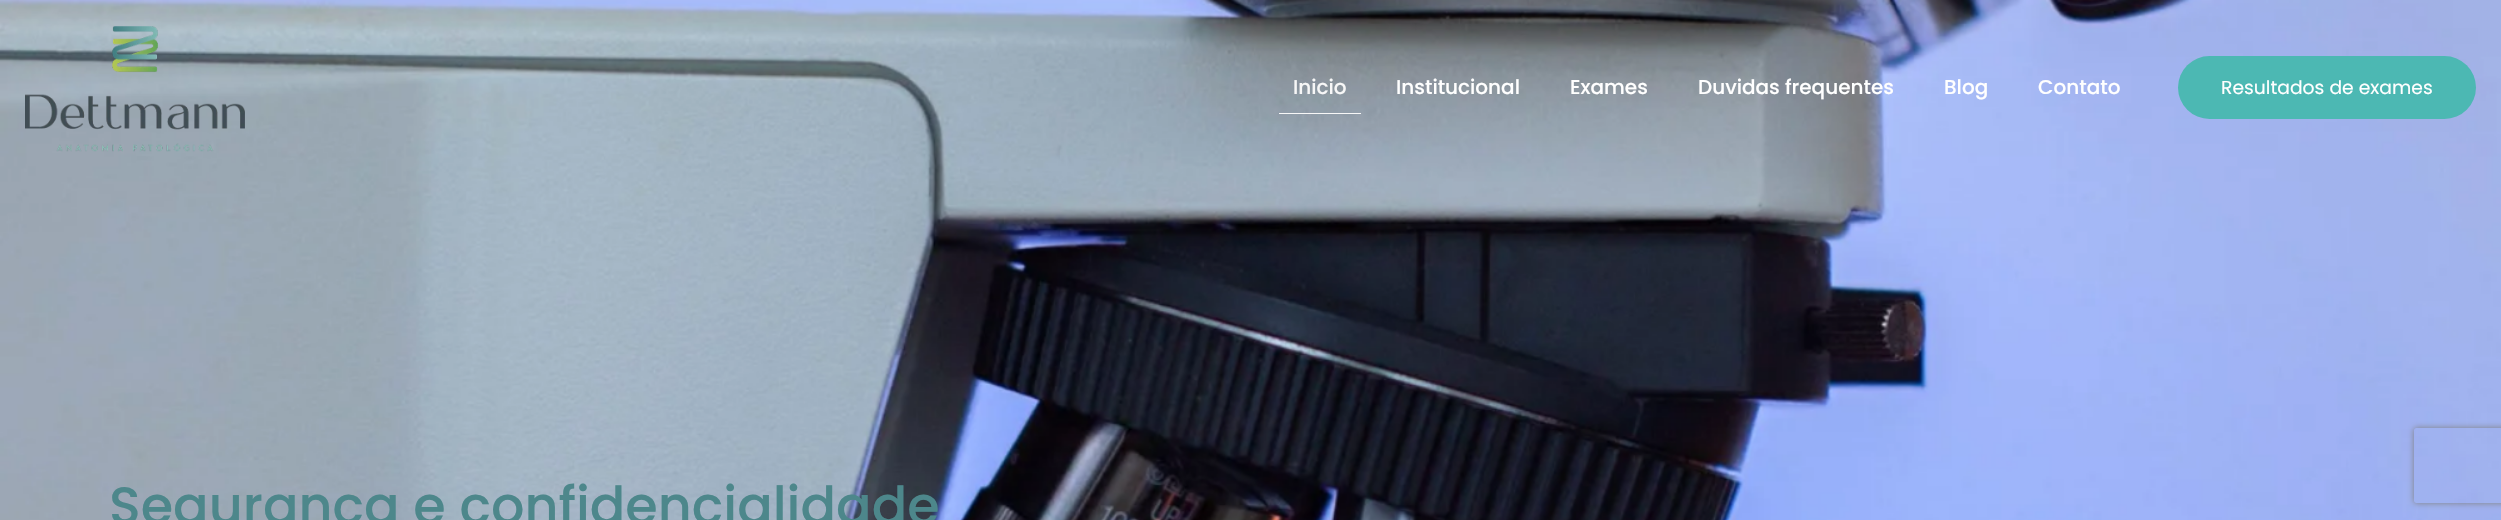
void draw(SkCanvas* canvas) {
  SkPaint paint;
  paint.setAntiAlias(true);
  auto face = [&](const char* family, int weight, float size, bool italic = false) {
    SkFontStyle style(weight, SkFontStyle::kNormal_Width,
      italic ? SkFontStyle::kItalic_Slant : SkFontStyle::kUpright_Slant);
    SkFont result(fontMgr->matchFamilyStyle(family, style), size);
    result.setSubpixel(true);
    return result;
  };
  auto paste = [&](const char* path, float x, float y, float w, float h) {
    auto image = SkImages::DeferredFromEncodedData(SkData::MakeFromFileName(path));
    canvas->drawImageRect(image, SkRect::MakeXYWH(x, y, w, h), SkSamplingOptions());
  };
  auto shape = [&](const char* data, bool evenOdd = false) {
    SkPath result = *SkParsePath::FromSVGString(data);
    if (evenOdd) result.setFillType(SkPathFillType::kEvenOdd);
    return result;
  };
  canvas->clear(0xffffffff);
  paste("img/2.png", 0, 0, 2501, 520);
  paste("img/1.png", 25, 26, 220, 126);
  paint.setColor(0xfff7f7f7);
  canvas->drawRect(SkRect::MakeXYWH(1279, 113, 82, 1), paint);
  paint.setColor(0xff4cb8b3);
  canvas->drawRoundRect(SkRect::MakeXYWH(2178, 56, 298, 63), 31.5f, 31.5f, paint);
  canvas->save();
  canvas->clipPath(shape("M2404 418H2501V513H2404ZM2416.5 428H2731.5C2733 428 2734 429 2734 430.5V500.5C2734 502 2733 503 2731.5 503H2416.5C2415 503 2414 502 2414 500.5V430.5C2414 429 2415 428 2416.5 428Z", true), true);
  paint.setColor(0xff808080);
  paint.setMaskFilter(SkMaskFilter::MakeBlur(kNormal_SkBlurStyle, 3));
  canvas->drawRoundRect(SkRect::MakeXYWH(2414, 428, 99, 75), 2.5f, 2.5f, paint);
  paint.setMaskFilter(nullptr);
  canvas->restore();
  auto f0 = face("Poppins", 500, 20);
  paint.setColor(0xfff7f7f7);
  canvas->drawString("Inicio", 1293, 94, f0, paint);
  paint.setColor(0xffffffff);
  {
    const struct { const char* s; float x, y; } items[] = {
      {"Institucional", 1396, 94},
      {"Exames", 1570, 94},
      {"Duvidas frequentes", 1698, 94},
      {"Blog", 1944, 94},
      {"Contato", 2038, 94},
    };
    for (auto [s, x, y] : items) {
      canvas->drawString(s, x, y, f0, paint);
    }
  }
  auto f1 = face("Poppins", 400, 18.75f);
  canvas->drawString("Resultados de exames", 2221, 94, f1, paint);
  auto f2 = face("Poppins", 500, 52.5f);
  paint.setColor(0xff4d878b);
  canvas->drawString("Segurança e confidencialidade", 109, 524, f2, paint);
}
